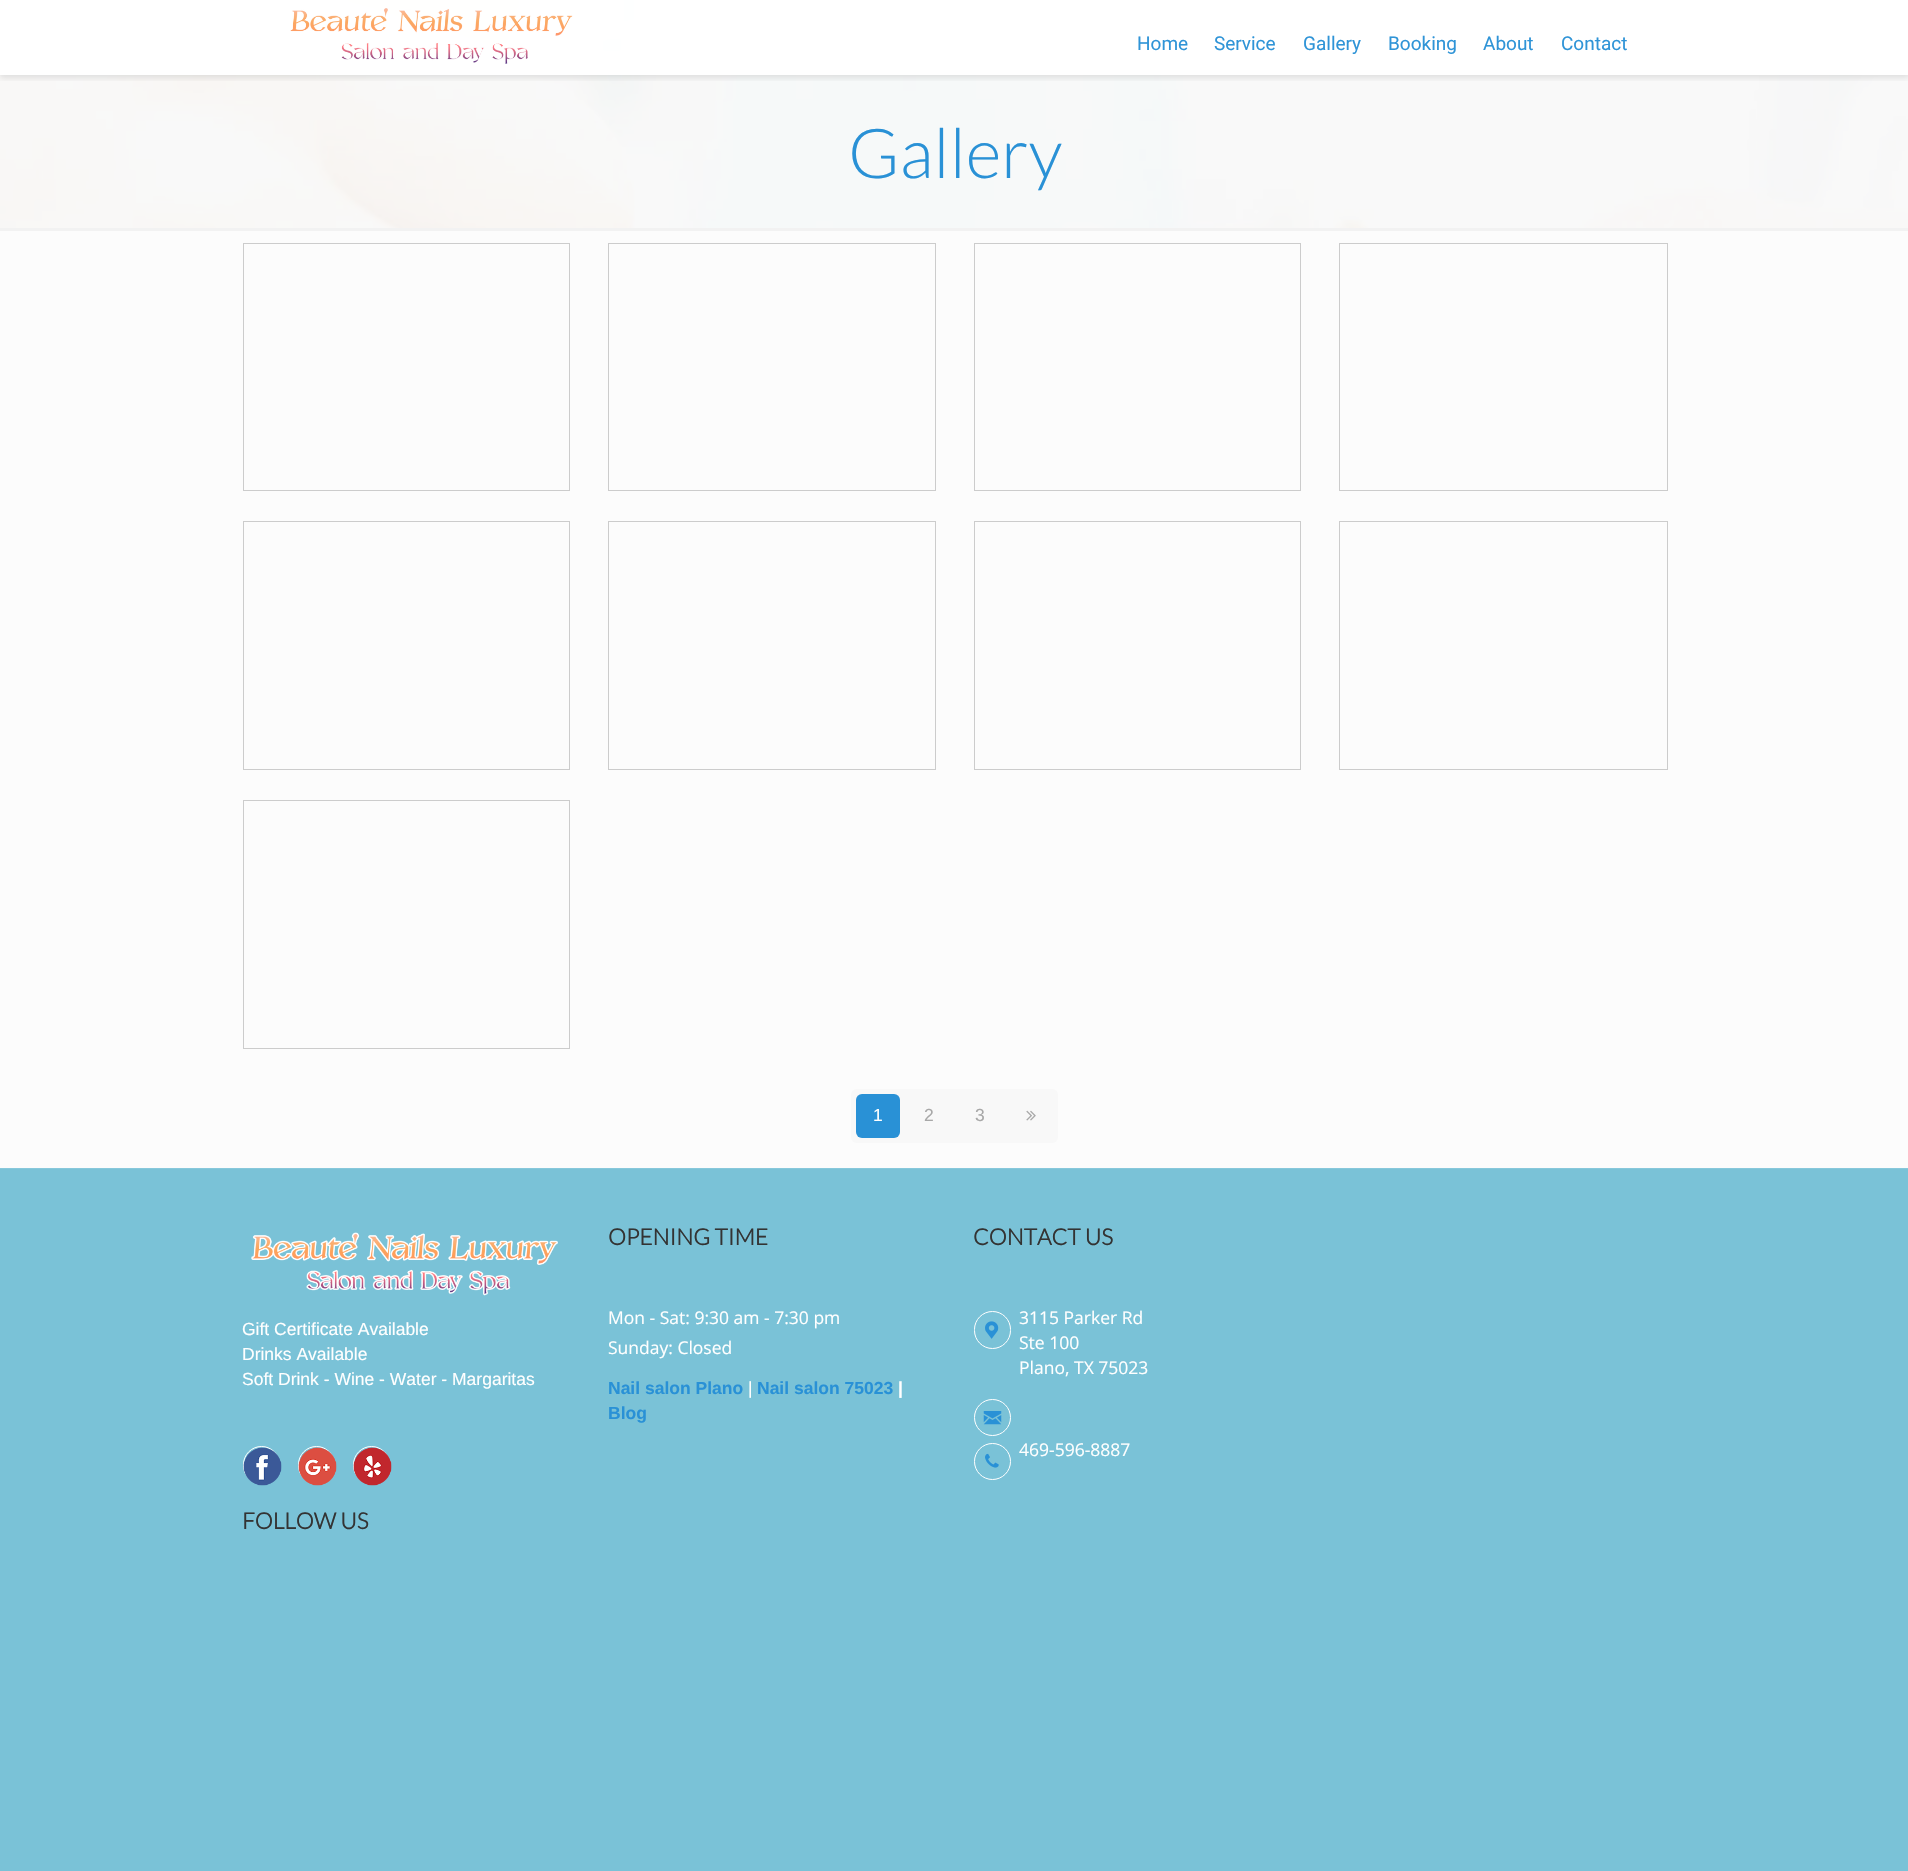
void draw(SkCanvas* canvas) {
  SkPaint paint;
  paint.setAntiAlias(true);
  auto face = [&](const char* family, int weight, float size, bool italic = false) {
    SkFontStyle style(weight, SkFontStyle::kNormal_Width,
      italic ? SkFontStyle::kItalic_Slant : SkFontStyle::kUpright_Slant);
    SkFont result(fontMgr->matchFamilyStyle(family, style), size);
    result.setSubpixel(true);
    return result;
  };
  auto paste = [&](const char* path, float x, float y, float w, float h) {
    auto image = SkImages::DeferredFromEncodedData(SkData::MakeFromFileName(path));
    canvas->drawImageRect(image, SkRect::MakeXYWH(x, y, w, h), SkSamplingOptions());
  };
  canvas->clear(0xfffcfcfc);
  paste("img/1.png", 0, 0, 1908, 228);
  paint.setColor(0xccf7f7f7);
  canvas->drawRect(SkRect::MakeXYWH(0, 51, 1908, 177), paint);
  canvas->save();
  canvas->clipRect(SkRect::MakeXYWH(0, 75, 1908, 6));
  paint.setColor(0x1a000000);
  paint.setMaskFilter(SkMaskFilter::MakeBlur(kNormal_SkBlurStyle, 3));
  canvas->drawRect(SkRect::MakeXYWH(0, 3, 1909, 75), paint);
  paint.setMaskFilter(nullptr);
  canvas->restore();
  paint.setColor(0xf7ffffff);
  canvas->drawRect(SkRect::MakeXYWH(0, 0, 1908, 75), paint);
  paste("img/2.png", 290, 8, 283, 56);
  paint.setColor(0xfff2f2f2);
  canvas->drawRect(SkRect::MakeXYWH(0, 228, 1908, 3), paint);
  paint.setStroke(true);
  paint.setStrokeWidth(1);
  paint.setColor(0xffcccccc);
  canvas->drawRect(SkRect::MakeXYWH(243.5f, 243.5f, 326, 247), paint);
  canvas->drawRect(SkRect::MakeXYWH(608.5f, 243.5f, 327, 247), paint);
  canvas->drawRect(SkRect::MakeXYWH(974.5f, 243.5f, 326, 247), paint);
  canvas->drawRect(SkRect::MakeXYWH(1339.5f, 243.5f, 328, 247), paint);
  canvas->drawRect(SkRect::MakeXYWH(243.5f, 521.5f, 326, 248), paint);
  canvas->drawRect(SkRect::MakeXYWH(608.5f, 521.5f, 327, 248), paint);
  canvas->drawRect(SkRect::MakeXYWH(974.5f, 521.5f, 326, 248), paint);
  canvas->drawRect(SkRect::MakeXYWH(1339.5f, 521.5f, 328, 248), paint);
  canvas->drawRect(SkRect::MakeXYWH(243.5f, 800.5f, 326, 248), paint);
  paint.setStroke(false);
  paint.setColor(0xfff8f8f8);
  canvas->drawRoundRect(SkRect::MakeXYWH(851, 1089, 207, 54), 6, 6, paint);
  paint.setColor(0xff2991d6);
  canvas->drawRoundRect(SkRect::MakeXYWH(856, 1094, 44, 44), 6, 6, paint);
  paste("img/3.png", 1026, 1110, 10, 11);
  paint.setColor(0xff7ac2d7);
  canvas->drawRect(SkRect::MakeXYWH(0, 1169, 1908, 702), paint);
  paint.setColor(0xff87c8db);
  canvas->drawRect(SkRect::MakeXYWH(0, 1168, 1908, 1), paint);
  paste("img/4.png", 251, 1232, 307, 64);
  paint.setStroke(true);
  paint.setColor(0xffffffff);
  canvas->drawRoundRect(SkRect::MakeXYWH(243.5f, 1446.5f, 36, 37), 18, 18, paint);
  paste("img/5.png", 243, 1447, 39, 39);
  canvas->drawRoundRect(SkRect::MakeXYWH(298.5f, 1446.5f, 36, 37), 18, 18, paint);
  paste("img/6.png", 298, 1447, 39, 39);
  canvas->drawRoundRect(SkRect::MakeXYWH(353.5f, 1446.5f, 36, 37), 18, 18, paint);
  paste("img/7.png", 353, 1447, 39, 39);
  canvas->drawRoundRect(SkRect::MakeXYWH(974.5f, 1311.5f, 36, 37), 18, 18, paint);
  paste("img/8.png", 985, 1321, 14, 18);
  canvas->drawCircle(992.5f, 1417.5f, 18, paint);
  paste("img/9.png", 983, 1411, 19, 14);
  canvas->drawCircle(992.5f, 1461.5f, 18, paint);
  paste("img/10.png", 985, 1453, 14, 15);
  auto f0 = face("Roboto", 400, 19);
  paint.setStroke(false);
  paint.setColor(0xff2f94d7);
  {
    const struct { const char* s; float x, y; } items[] = {
      {"Home", 1137, 50},
      {"Service", 1214, 50},
      {"Gallery", 1303, 50},
      {"Booking", 1388, 50},
      {"About", 1483, 50},
      {"Contact", 1561, 50},
    };
    for (auto [s, x, y] : items) {
      canvas->drawString(s, x, y, f0, paint);
    }
  }
  auto f1 = face("Lato", 300, 69);
  paint.setColor(0xff2991d6);
  canvas->drawString("Gallery", 848, 178, f1, paint);
  auto f2 = face("Liberation Sans", 400, 17.5f);
  paint.setColor(0xffffffff);
  canvas->drawString("1", 873, 1121, f2, paint);
  paint.setColor(0xffa8a8a8);
  canvas->drawString("2", 924, 1121, f2, paint);
  canvas->drawString("3", 975, 1121, f2, paint);
  paint.setColor(0xffffffff);
  {
    const struct { const char* s; float x, y; } items[] = {
      {"Gift Certificate Available", 242, 1335},
      {"Drinks Available", 242, 1360},
      {"Soft Drink - Wine - Water - Margaritas", 242, 1385},
    };
    for (auto [s, x, y] : items) {
      canvas->drawString(s, x, y, f2, paint);
    }
  }
  auto f3 = face("Lato", 700, 22.5f);
  paint.setColor(0xff333333);
  canvas->drawString("OPENING TIME", 608, 1245, f3, paint);
  auto f4 = face("Open Sans", 400, 17.5f);
  paint.setColor(0xffffffff);
  canvas->drawString("Mon - Sat: 9:30 am - 7:30 pm", 608, 1324, f4, paint);
  canvas->drawString("Sunday: Closed", 608, 1354, f4, paint);
  auto f5 = face("Liberation Sans", 700, 17.5f);
  paint.setColor(0xff2991d6);
  canvas->drawString("Nail salon Plano", 608, 1394, f5, paint);
  paint.setColor(0xffffffff);
  canvas->drawString("|", 748, 1394, f2, paint);
  paint.setColor(0xff2991d6);
  canvas->drawString("Nail salon 75023", 757, 1394, f5, paint);
  paint.setColor(0xffffffff);
  canvas->drawString("|", 898, 1394, f5, paint);
  paint.setColor(0xff2991d6);
  canvas->drawString("Blog", 608, 1419, f5, paint);
  paint.setColor(0xff333333);
  canvas->drawString("CONTACT US", 973, 1245, f3, paint);
  paint.setColor(0xffffffff);
  {
    const struct { const char* s; float x, y; } items[] = {
      {"3115 Parker Rd", 1019, 1324},
      {"Ste 100", 1019, 1349},
      {"Plano, TX 75023", 1019, 1374},
      {"469-596-8887", 1019, 1456},
    };
    for (auto [s, x, y] : items) {
      canvas->drawString(s, x, y, f4, paint);
    }
  }
  paint.setColor(0xff333333);
  canvas->drawString("FOLLOW US", 242, 1529, f3, paint);
}
